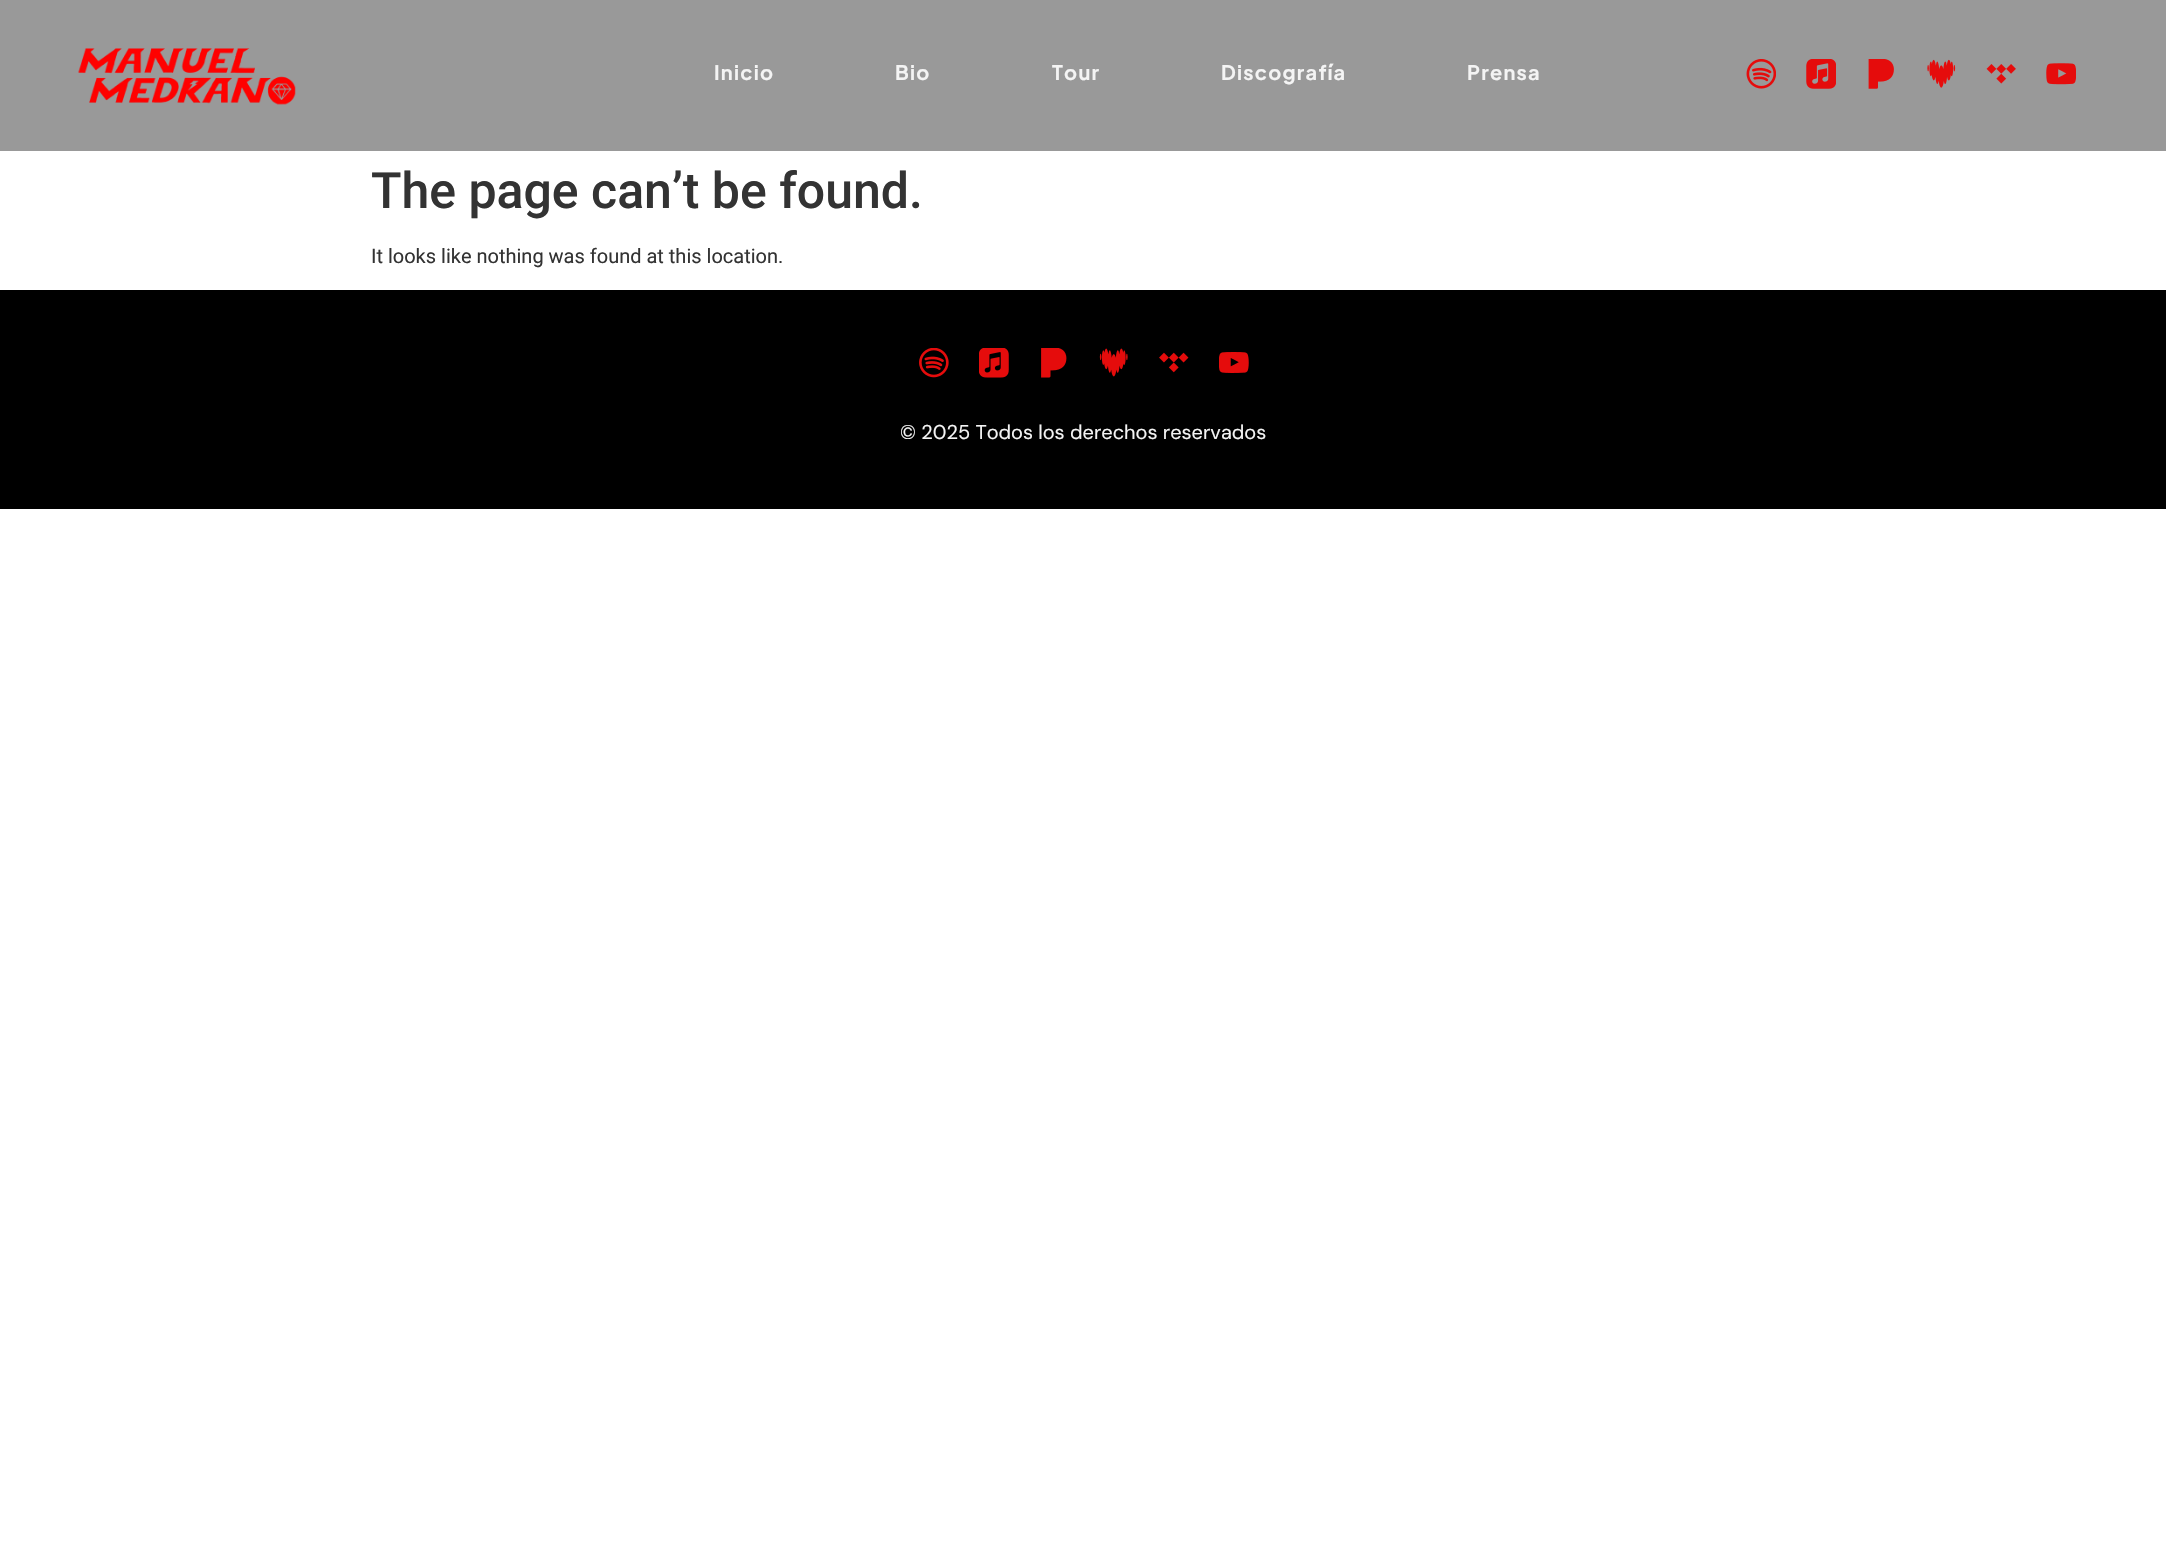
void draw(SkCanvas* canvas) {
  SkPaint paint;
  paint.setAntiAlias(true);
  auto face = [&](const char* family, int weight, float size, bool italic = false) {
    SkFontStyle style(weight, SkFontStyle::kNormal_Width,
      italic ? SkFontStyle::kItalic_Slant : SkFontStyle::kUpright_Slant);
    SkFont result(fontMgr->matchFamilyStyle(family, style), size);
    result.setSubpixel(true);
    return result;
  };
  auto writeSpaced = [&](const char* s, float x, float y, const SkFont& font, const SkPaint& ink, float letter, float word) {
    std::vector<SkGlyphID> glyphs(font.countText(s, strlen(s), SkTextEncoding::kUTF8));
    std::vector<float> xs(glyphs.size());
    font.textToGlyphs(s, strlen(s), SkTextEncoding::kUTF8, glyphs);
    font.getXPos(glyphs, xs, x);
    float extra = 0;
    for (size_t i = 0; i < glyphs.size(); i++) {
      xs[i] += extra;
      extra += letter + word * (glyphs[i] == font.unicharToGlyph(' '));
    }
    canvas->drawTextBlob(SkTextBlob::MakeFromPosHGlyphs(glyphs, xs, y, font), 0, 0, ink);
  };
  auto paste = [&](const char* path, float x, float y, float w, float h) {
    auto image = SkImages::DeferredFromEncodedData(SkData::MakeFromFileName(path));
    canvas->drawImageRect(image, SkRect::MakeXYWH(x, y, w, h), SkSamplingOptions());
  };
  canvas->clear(0xffffffff);
  paint.setColor(0xff999999);
  canvas->drawRect(SkRect::MakeXYWH(0, 0, 2166, 151), paint);
  paste("img/1.png", 78, 48, 218, 57);
  paste("img/2.png", 1746, 59, 30, 30);
  paste("img/3.png", 1806, 59, 30, 30);
  paste("img/4.png", 1868, 59, 26, 30);
  paste("img/5.png", 1927, 59, 29, 29);
  paste("img/6.png", 1986, 64, 30, 20);
  paste("img/7.png", 2046, 63, 30, 22);
  paint.setColor(0xff000000);
  canvas->drawRect(SkRect::MakeXYWH(0, 290, 2166, 219), paint);
  paste("img/8.png", 919, 348, 30, 30);
  paste("img/9.png", 979, 348, 30, 30);
  paste("img/10.png", 1041, 348, 26, 30);
  paste("img/11.png", 1099, 348, 29, 29);
  paste("img/12.png", 1159, 352, 30, 21);
  paste("img/13.png", 1219, 352, 30, 21);
  auto f0 = face("Plus Jakarta Sans", 700, 20);
  paint.setColor(0xfff4f4f4);
  {
    const struct { const char* s; float x, y; } items[] = {
      {"Inicio", 714, 80},
      {"Bio", 895, 80},
      {"Tour", 1052, 80},
      {"Discografía", 1221, 80},
      {"Prensa", 1467, 80},
    };
    for (auto [s, x, y] : items) {
      writeSpaced(s, x, y, f0, paint, 1.25f, 0);
    }
  }
  auto f1 = face("Roboto", 500, 50);
  paint.setColor(0xff333333);
  canvas->drawString("The page can’t be found.", 371, 208, f1, paint);
  auto f2 = face("Roboto", 400, 20);
  canvas->drawString("It looks like nothing was found at this location.", 371, 263, f2, paint);
  auto f3 = face("DM Sans", 400, 20);
  paint.setColor(0xfff4f4f4);
  canvas->drawString("© 2025 Todos los derechos reservados", 900, 439, f3, paint);
}
